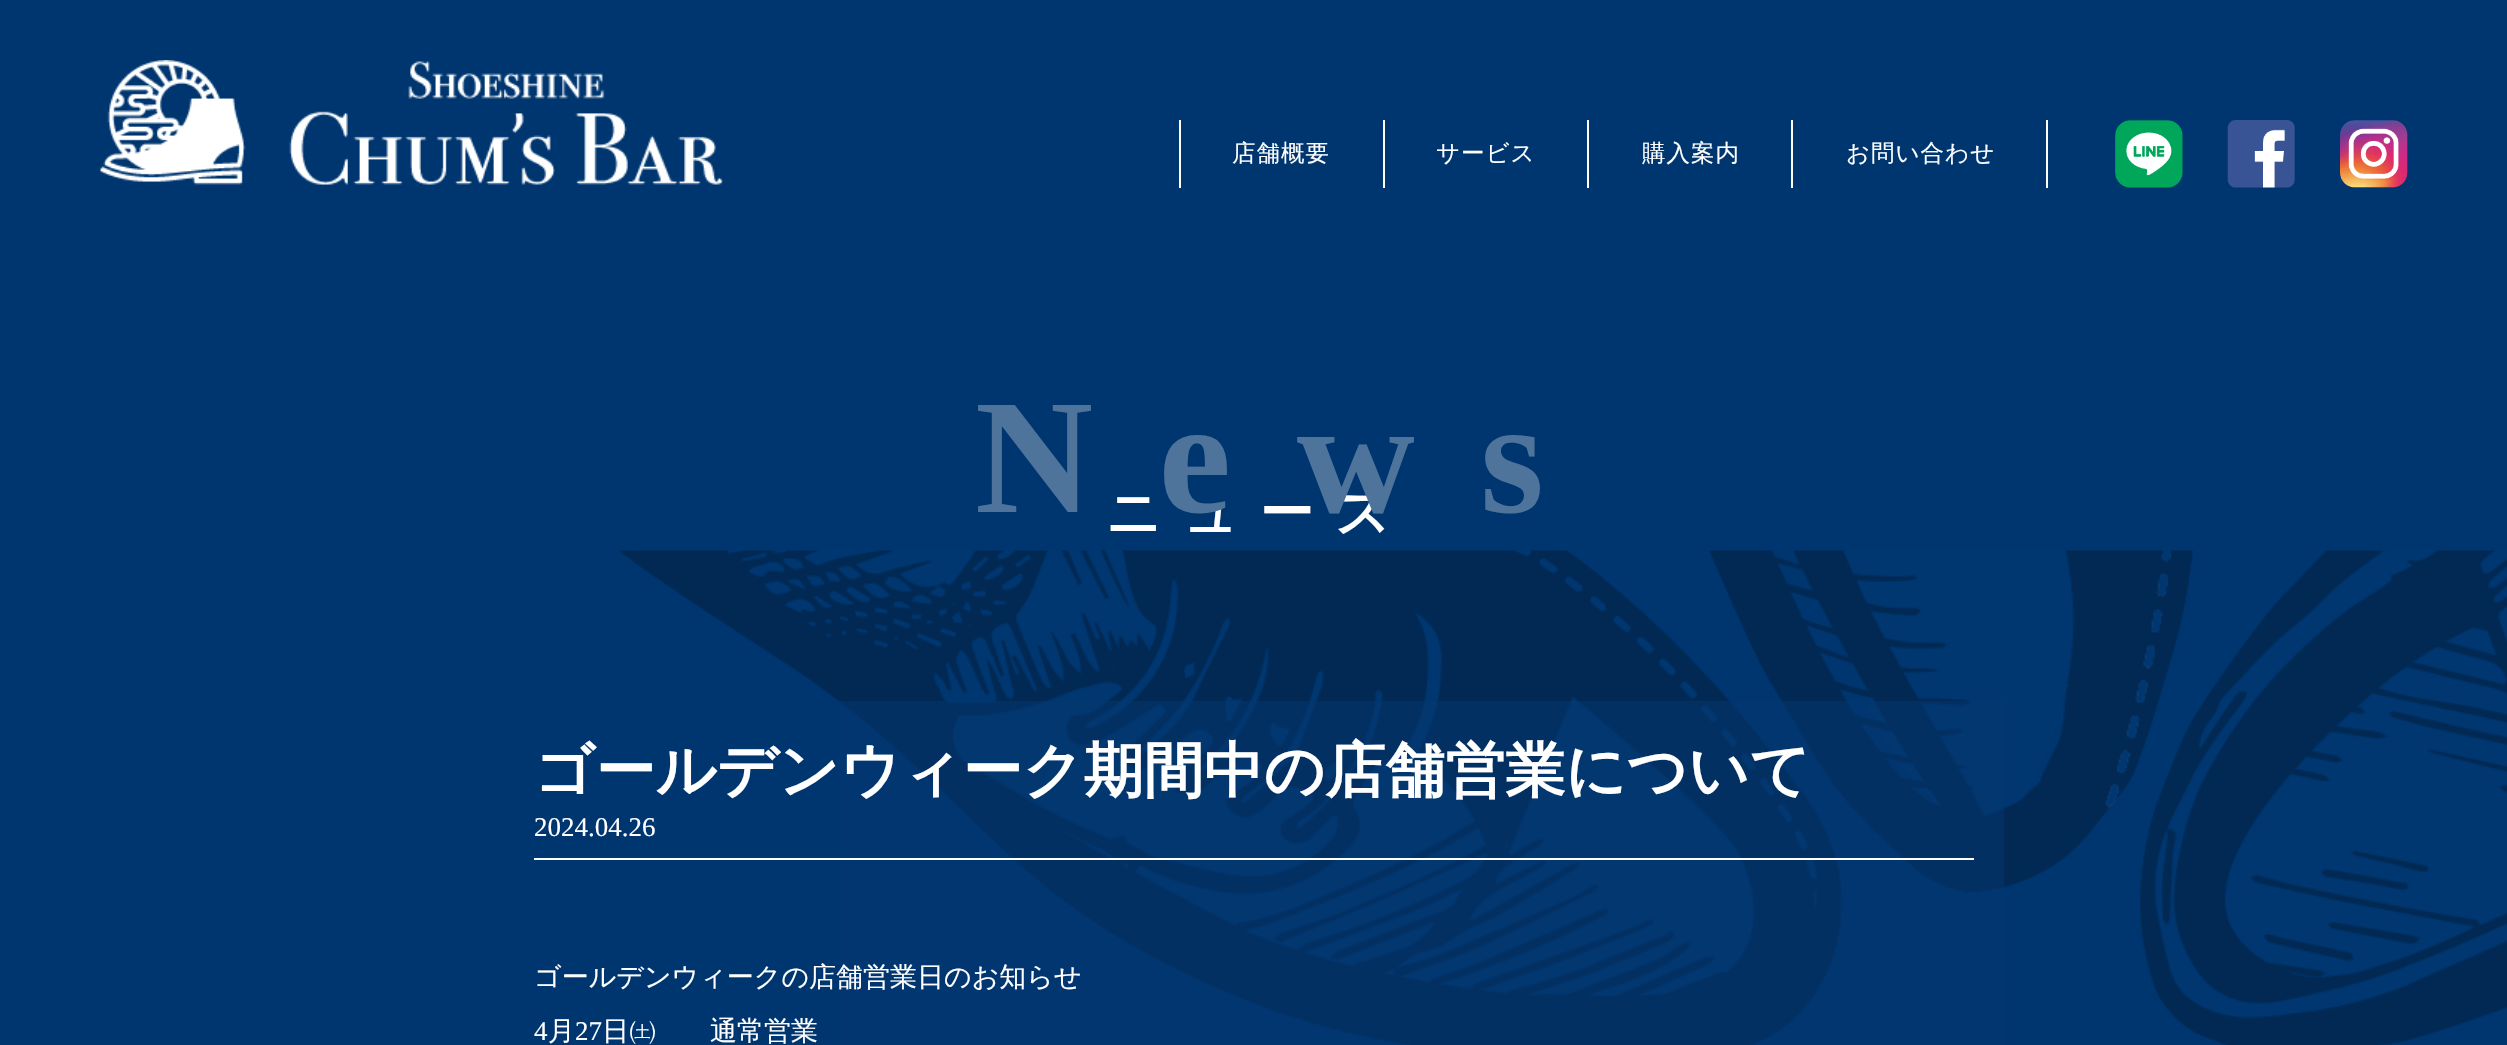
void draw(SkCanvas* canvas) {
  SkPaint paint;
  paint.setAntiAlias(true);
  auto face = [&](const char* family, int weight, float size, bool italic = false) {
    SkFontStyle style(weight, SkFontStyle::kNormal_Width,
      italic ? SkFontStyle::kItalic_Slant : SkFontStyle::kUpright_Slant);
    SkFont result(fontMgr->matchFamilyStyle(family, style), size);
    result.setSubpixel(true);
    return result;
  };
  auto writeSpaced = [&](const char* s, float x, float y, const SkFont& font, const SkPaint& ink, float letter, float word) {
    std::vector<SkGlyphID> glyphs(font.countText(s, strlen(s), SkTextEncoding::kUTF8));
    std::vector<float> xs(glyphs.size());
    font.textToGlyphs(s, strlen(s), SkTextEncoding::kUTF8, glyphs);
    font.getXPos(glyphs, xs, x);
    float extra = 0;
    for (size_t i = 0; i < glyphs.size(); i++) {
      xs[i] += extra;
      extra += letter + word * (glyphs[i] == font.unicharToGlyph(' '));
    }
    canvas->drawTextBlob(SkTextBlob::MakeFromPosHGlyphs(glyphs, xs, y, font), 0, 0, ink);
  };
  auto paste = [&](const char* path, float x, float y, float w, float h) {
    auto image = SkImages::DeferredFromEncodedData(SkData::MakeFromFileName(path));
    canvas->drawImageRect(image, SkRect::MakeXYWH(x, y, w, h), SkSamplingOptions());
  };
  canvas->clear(0xff003670);
  paste("img/1.png", 100, 60, 623, 125);
  {
    const struct { float x, y, w, h; SkColor color; } items[] = {
      {1179, 120, 2, 68, 0xffffffff},
      {1383, 120, 2, 68, 0xffffffff},
      {1587, 120, 2, 68, 0xffffffff},
      {2046, 120, 2, 68, 0xffffffff},
      {1791, 120, 2, 68, 0xffffffff},
    };
    for (auto [x, y, w, h, color] : items) {
      paint.setColor(color);
      canvas->drawRect(SkRect::MakeXYWH(x, y, w, h), paint);
    }
  }
  paste("img/2.png", 2115, 120, 68, 68);
  paste("img/3.png", 2227, 120, 68, 68);
  paste("img/4.png", 2340, 120, 68, 68);
  paste("img/5.png", 619, 550, 1888, 495);
  paint.setColor(0x8003366f);
  canvas->drawRect(SkRect::MakeXYWH(839, 701, 1165, 344), paint);
  paint.setColor(0xffffffff);
  canvas->drawRect(SkRect::MakeXYWH(534, 858, 1440, 2), paint);
  auto f0 = face("WenQuanYi Zen Hei", 500, 23.5f);
  {
    const struct { const char* s; float x, y; } items[] = {
      {"店舗概要", 1232, 161},
      {"サービス", 1436, 161},
      {"購入案内", 1642, 161},
      {"お問い合わせ", 1846, 161},
    };
    for (auto [s, x, y] : items) {
      writeSpaced(s, x, y, f0, paint, 1, 0);
    }
  }
  auto f1 = face("WenQuanYi Zen Hei", 700, 54);
  writeSpaced("ニュース", 1106, 531, f1, paint, 21.5f, 0);
  auto f2 = face("Liberation Serif", 700, 163.5f);
  paint.setColor(0xff4e749c);
  writeSpaced("News", 975, 512, f2, paint, 65.5f, 0);
  auto f3 = face("WenQuanYi Zen Hei", 700, 60);
  paint.setColor(0xffffffff);
  canvas->drawString("ゴールデンウィーク期間中の店舗営業について", 534, 791, f3, paint);
  auto f4 = face("Liberation Serif", 400, 27);
  canvas->drawString("2024.04.26", 534, 836, f4, paint);
  auto f5 = face("WenQuanYi Zen Hei", 500, 27);
  canvas->drawString("ゴールデンウィークの店舗営業日のお知らせ", 534, 986, f5, paint);
  canvas->drawString("4", 534, 1040, f4, paint);
  canvas->drawString("月", 548, 1040, f5, paint);
  canvas->drawString("27", 575, 1040, f4, paint);
  canvas->drawString("日㈯　　通常営業", 602, 1040, f5, paint);
}
